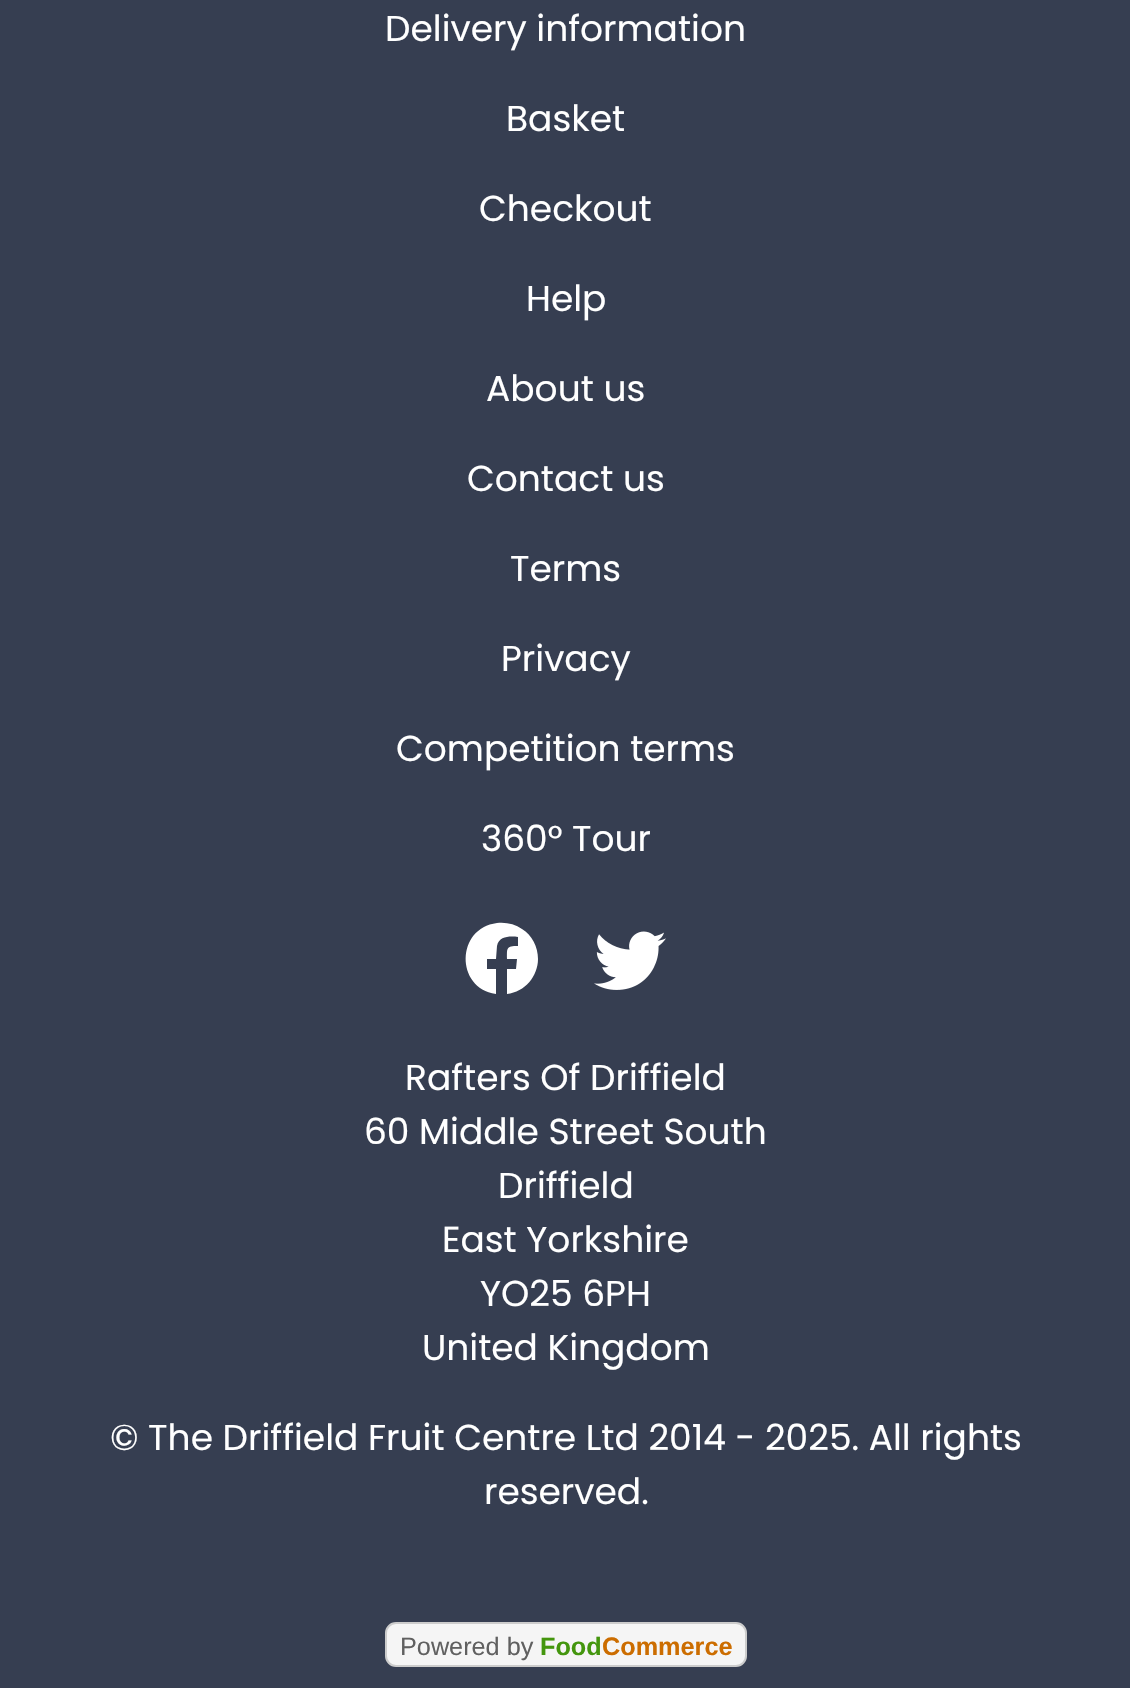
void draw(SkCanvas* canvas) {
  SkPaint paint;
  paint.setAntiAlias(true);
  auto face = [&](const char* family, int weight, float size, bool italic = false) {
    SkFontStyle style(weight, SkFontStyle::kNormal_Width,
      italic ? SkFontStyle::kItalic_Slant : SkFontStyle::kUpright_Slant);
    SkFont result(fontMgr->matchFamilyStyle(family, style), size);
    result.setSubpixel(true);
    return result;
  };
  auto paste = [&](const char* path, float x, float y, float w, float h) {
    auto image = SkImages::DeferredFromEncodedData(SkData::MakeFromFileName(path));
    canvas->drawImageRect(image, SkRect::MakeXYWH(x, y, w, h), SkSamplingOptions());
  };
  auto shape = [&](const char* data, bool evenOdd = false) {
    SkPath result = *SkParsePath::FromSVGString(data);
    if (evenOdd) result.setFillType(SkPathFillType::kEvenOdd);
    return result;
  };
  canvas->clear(0xff363e51);
  paint.setColor(0xffffffff);
  canvas->drawPath(shape("M538 959C538 947 532 935 522 929C515 924 506 922 497 923C456 928 455 988 496 994V969H487V959H496L497 946C499 936 510 936 518 937V946C506 946 507 948 507 959H517L516 969H507V994C525 992 538 976 538 959Z"), paint);
  paste("img/1.png", 594, 931, 72, 59);
  paint.setColor(0xfff5f5f5);
  canvas->drawRoundRect(SkRect::MakeXYWH(386, 1623, 360, 43), 10, 10, paint);
  paint.setStroke(true);
  paint.setStrokeWidth(2);
  paint.setColor(0xffcccccc);
  canvas->drawRoundRect(SkRect::MakeXYWH(386, 1623, 360, 43), 10, 10, paint);
  auto f0 = face("Poppins", 400, 36);
  paint.setStroke(false);
  paint.setColor(0xffffffff);
  {
    const struct { const char* s; float x, y; } items[] = {
      {"Delivery information", 385, 41},
      {"Basket", 506, 131},
      {"Checkout", 479, 221},
      {"Help", 526, 311},
      {"About us", 486, 401},
      {"Contact us", 467, 491},
      {"Terms", 510, 581},
      {"Privacy", 501, 671},
      {"Competition terms", 396, 761},
      {"360° Tour", 481, 851},
      {"Rafters Of Driffield", 405, 1090},
      {"60 Middle Street South", 364, 1144},
      {"Driffield", 498, 1198},
      {"East Yorkshire", 442, 1252},
      {"YO25 6PH", 480, 1306},
      {"United Kingdom", 422, 1360},
      {"© The Driffield Fruit Centre Ltd 2014 - 2025. All rights", 110, 1450},
      {"reserved.", 484, 1504},
    };
    for (auto [s, x, y] : items) {
      canvas->drawString(s, x, y, f0, paint);
    }
  }
  auto f1 = face("Liberation Sans", 400, 25.25f);
  paint.setColor(0xff606060);
  canvas->drawString("Powered by", 400, 1655, f1, paint);
  auto f2 = face("Liberation Sans", 700, 25.25f);
  paint.setColor(0xff44960e);
  canvas->drawString("Food", 540, 1655, f2, paint);
  paint.setColor(0xffcc6d00);
  canvas->drawString("Commerce", 602, 1655, f2, paint);
}
